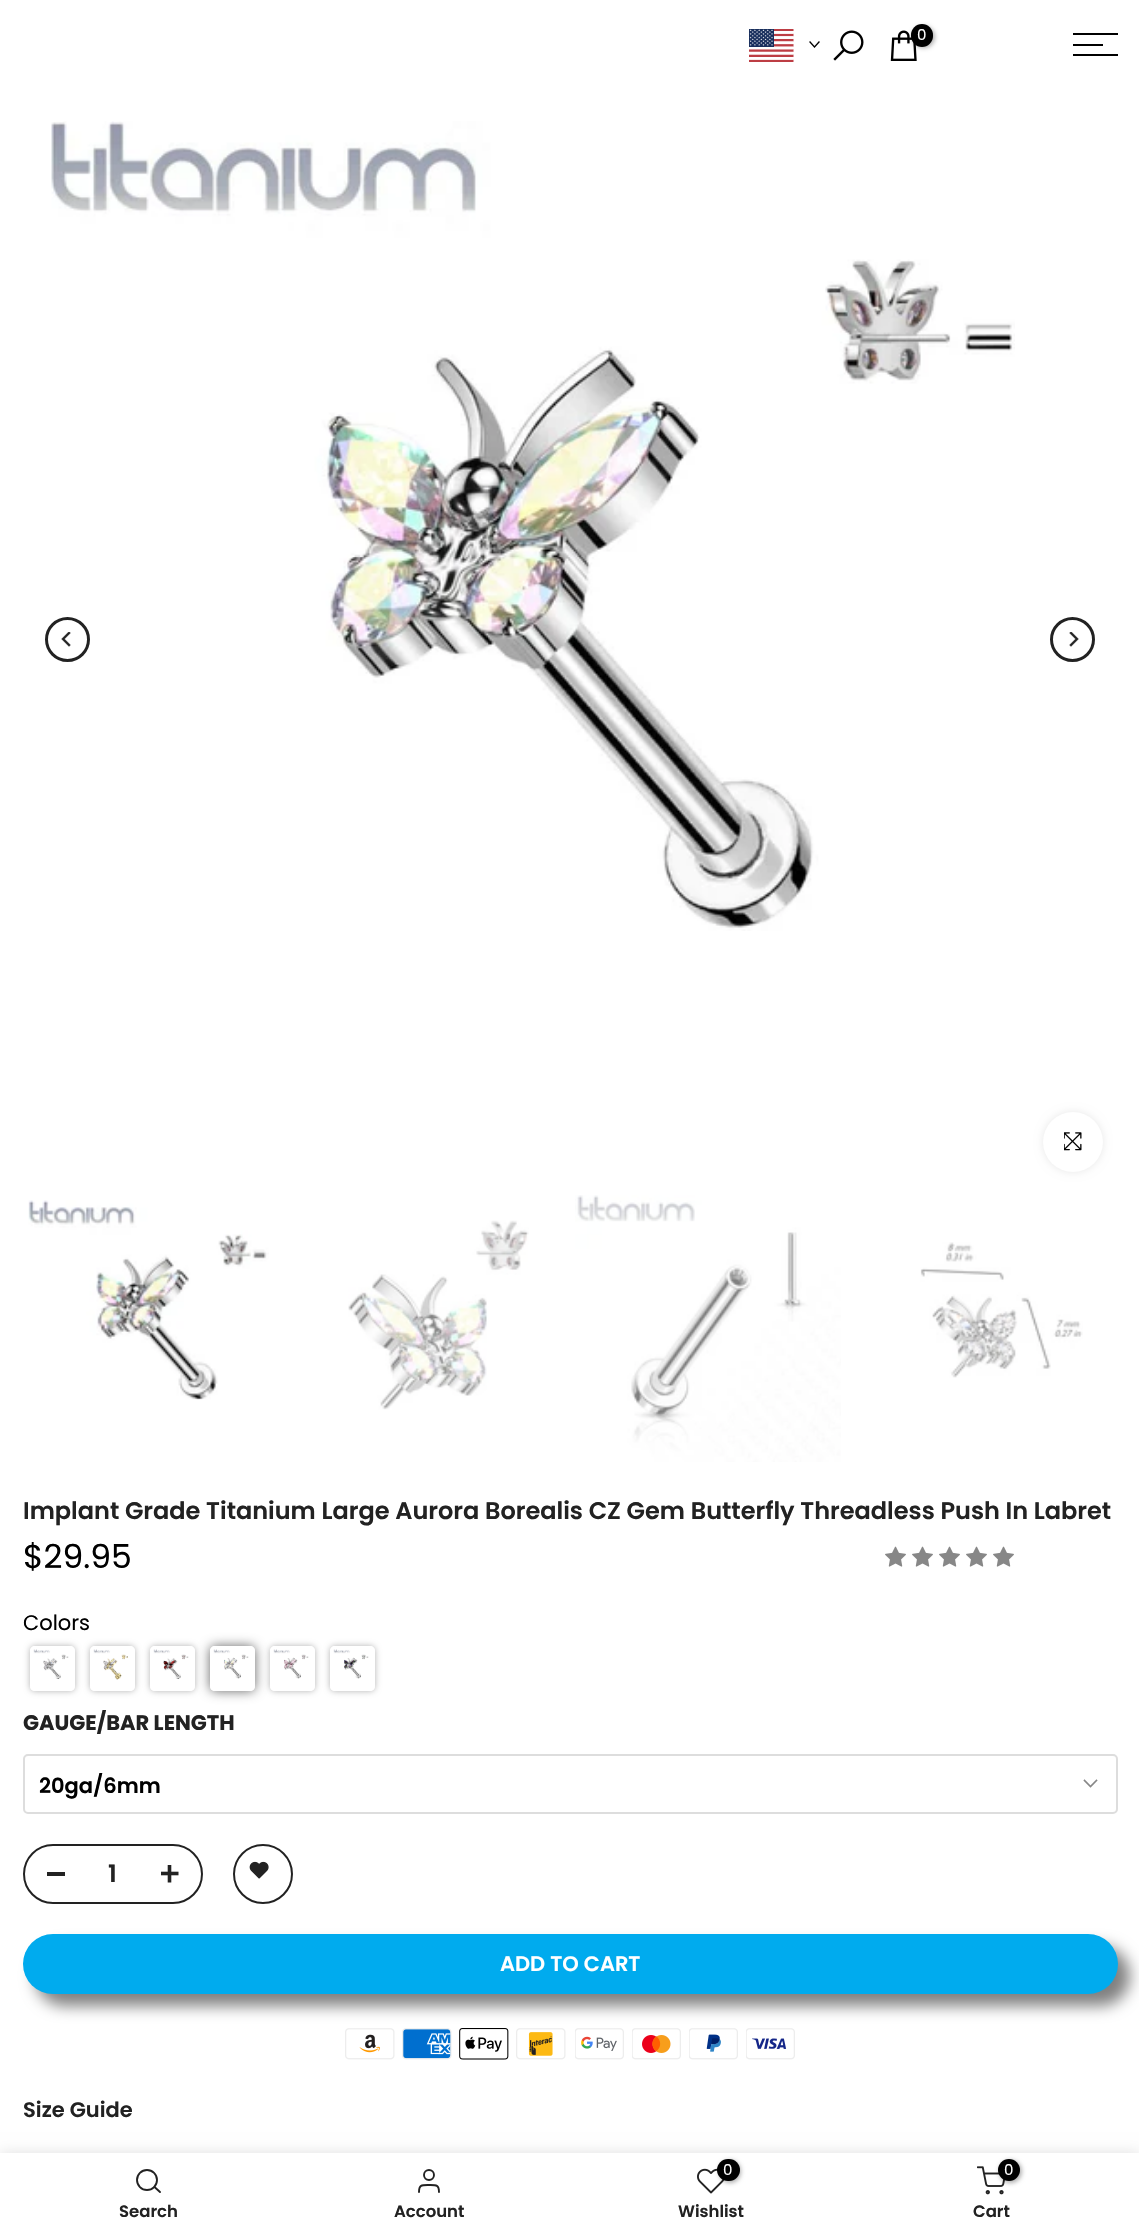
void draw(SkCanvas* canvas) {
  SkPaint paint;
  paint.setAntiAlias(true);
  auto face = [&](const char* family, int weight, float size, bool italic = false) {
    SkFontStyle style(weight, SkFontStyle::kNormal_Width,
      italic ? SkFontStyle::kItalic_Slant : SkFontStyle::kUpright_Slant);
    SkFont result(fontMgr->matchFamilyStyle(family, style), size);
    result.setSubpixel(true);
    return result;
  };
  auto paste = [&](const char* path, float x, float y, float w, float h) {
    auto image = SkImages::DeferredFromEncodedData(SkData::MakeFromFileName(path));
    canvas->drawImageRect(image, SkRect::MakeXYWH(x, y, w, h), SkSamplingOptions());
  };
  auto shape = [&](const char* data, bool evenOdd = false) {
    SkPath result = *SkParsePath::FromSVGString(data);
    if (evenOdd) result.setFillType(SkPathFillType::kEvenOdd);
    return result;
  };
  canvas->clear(0xffffffff);
  paste("img/1.png", 749, 29, 45, 33);
  paint.setStroke(true);
  paint.setStrokeWidth(1.3f);
  paint.setStrokeCap(SkPaint::kSquare_Cap);
  paint.setColor(0xff000000);
  canvas->drawPath(shape("M819 42L814.5 47L810 42"), paint);
  paste("img/2.png", 833, 30, 31, 31);
  paste("img/3.png", 890, 30, 27, 31);
  paint.setStroke(false);
  paint.setColor(0x4d000000);
  paint.setMaskFilter(SkMaskFilter::MakeBlur(kNormal_SkBlurStyle, 2));
  canvas->drawRoundRect(SkRect::MakeXYWH(912, 26, 23, 22), 11, 11, paint);
  paint.setMaskFilter(nullptr);
  paint.setColor(0xff000000);
  canvas->drawRoundRect(SkRect::MakeXYWH(911, 24, 22, 23), 11, 11, paint);
  {
    const struct { float x, y, w, h; SkColor color; } items[] = {
      {1073, 33, 45, 2, 0xff000000},
      {1073, 44, 30, 2, 0xff000000},
      {1073, 54, 45, 2, 0xff000000},
    };
    for (auto [x, y, w, h, color] : items) {
      paint.setColor(color);
      canvas->drawRect(SkRect::MakeXYWH(x, y, w, h), paint);
    }
  }
  paste("img/4.png", 51, 121, 964, 810);
  paint.setStroke(true);
  paint.setStrokeWidth(3);
  paint.setStrokeCap(SkPaint::kButt_Cap);
  paint.setColor(0xff222222);
  canvas->drawCircle(67.5f, 639.5f, 21, paint);
  paste("img/5.png", 61, 632, 10, 15);
  canvas->drawCircle(1072.5f, 639.5f, 21, paint);
  paste("img/6.png", 1069, 632, 10, 15);
  paint.setStroke(false);
  paint.setColor(0x17000000);
  paint.setMaskFilter(SkMaskFilter::MakeBlur(kNormal_SkBlurStyle, 4));
  canvas->drawRoundRect(SkRect::MakeXYWH(1043, 1112, 60, 60), 30, 30, paint);
  paint.setMaskFilter(nullptr);
  paint.setColor(0xffffffff);
  canvas->drawCircle(1073, 1142, 30, paint);
  paste("img/7.png", 1064, 1132, 18, 19);
  paste("img/8.png", 28, 1200, 241, 200);
  paste("img/9.png", 348, 1220, 181, 190);
  paste("img/10.png", 575, 1195, 266, 267);
  paste("img/11.png", 920, 1242, 163, 136);
  paste("img/12.png", 885, 1546, 21, 21);
  paste("img/12.png", 912, 1546, 21, 21);
  paste("img/12.png", 939, 1546, 21, 21);
  paste("img/12.png", 966, 1546, 21, 21);
  paste("img/12.png", 993, 1546, 21, 21);
  canvas->save();
  canvas->clipPath(shape("M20 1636H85V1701H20ZM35 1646H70C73 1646 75 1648 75 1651V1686C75 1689 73 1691 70 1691H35C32 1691 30 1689 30 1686V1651C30 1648 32 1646 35 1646Z", true), true);
  paint.setColor(0x4d000000);
  paint.setMaskFilter(SkMaskFilter::MakeBlur(kNormal_SkBlurStyle, 3));
  canvas->drawRoundRect(SkRect::MakeXYWH(30, 1646, 45, 45), 5, 5, paint);
  paint.setMaskFilter(nullptr);
  canvas->restore();
  paint.setStroke(true);
  paint.setColor(0xffffffff);
  canvas->drawRoundRect(SkRect::MakeXYWH(31.5f, 1647.5f, 42, 42), 3.5f, 3.5f, paint);
  paste("img/13.png", 33, 1649, 36, 30);
  canvas->save();
  canvas->clipPath(shape("M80 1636H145V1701H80ZM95 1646H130C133 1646 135 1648 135 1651V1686C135 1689 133 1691 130 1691H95C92 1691 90 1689 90 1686V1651C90 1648 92 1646 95 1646Z", true), true);
  paint.setStroke(false);
  paint.setColor(0x4d000000);
  paint.setMaskFilter(SkMaskFilter::MakeBlur(kNormal_SkBlurStyle, 3));
  canvas->drawRoundRect(SkRect::MakeXYWH(90, 1646, 45, 45), 5, 5, paint);
  paint.setMaskFilter(nullptr);
  canvas->restore();
  paint.setStroke(true);
  paint.setColor(0xffffffff);
  canvas->drawRoundRect(SkRect::MakeXYWH(91.5f, 1647.5f, 42, 42), 3.5f, 3.5f, paint);
  paste("img/14.png", 93, 1649, 35, 31);
  canvas->save();
  canvas->clipPath(shape("M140 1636H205V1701H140ZM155 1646H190C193 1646 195 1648 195 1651V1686C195 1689 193 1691 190 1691H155C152 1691 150 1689 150 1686V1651C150 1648 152 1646 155 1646Z", true), true);
  paint.setStroke(false);
  paint.setColor(0x4d000000);
  paint.setMaskFilter(SkMaskFilter::MakeBlur(kNormal_SkBlurStyle, 3));
  canvas->drawRoundRect(SkRect::MakeXYWH(150, 1646, 45, 45), 5, 5, paint);
  paint.setMaskFilter(nullptr);
  canvas->restore();
  paint.setStroke(true);
  paint.setColor(0xffffffff);
  canvas->drawRoundRect(SkRect::MakeXYWH(151.5f, 1647.5f, 42, 42), 3.5f, 3.5f, paint);
  paste("img/15.png", 153, 1649, 36, 30);
  canvas->save();
  canvas->clipPath(shape("M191 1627H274V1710H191ZM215 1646H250C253 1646 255 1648 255 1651V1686C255 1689 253 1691 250 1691H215C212 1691 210 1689 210 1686V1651C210 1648 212 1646 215 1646Z", true), true);
  paint.setStroke(false);
  paint.setColor(0x99000000);
  paint.setMaskFilter(SkMaskFilter::MakeBlur(kNormal_SkBlurStyle, 6));
  canvas->drawRoundRect(SkRect::MakeXYWH(210, 1646, 45, 45), 5, 5, paint);
  paint.setMaskFilter(nullptr);
  canvas->restore();
  paint.setStroke(true);
  paint.setColor(0xffffffff);
  canvas->drawRoundRect(SkRect::MakeXYWH(211.5f, 1647.5f, 42, 42), 3.5f, 3.5f, paint);
  paste("img/16.png", 213, 1649, 36, 30);
  canvas->save();
  canvas->clipPath(shape("M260 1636H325V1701H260ZM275 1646H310C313 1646 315 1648 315 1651V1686C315 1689 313 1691 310 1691H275C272 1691 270 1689 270 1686V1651C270 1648 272 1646 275 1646Z", true), true);
  paint.setStroke(false);
  paint.setColor(0x4d000000);
  paint.setMaskFilter(SkMaskFilter::MakeBlur(kNormal_SkBlurStyle, 3));
  canvas->drawRoundRect(SkRect::MakeXYWH(270, 1646, 45, 45), 5, 5, paint);
  paint.setMaskFilter(nullptr);
  canvas->restore();
  paint.setStroke(true);
  paint.setColor(0xffffffff);
  canvas->drawRoundRect(SkRect::MakeXYWH(271.5f, 1647.5f, 42, 42), 3.5f, 3.5f, paint);
  paste("img/17.png", 273, 1649, 36, 30);
  canvas->save();
  canvas->clipPath(shape("M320 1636H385V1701H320ZM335 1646H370C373 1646 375 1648 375 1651V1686C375 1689 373 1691 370 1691H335C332 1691 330 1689 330 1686V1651C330 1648 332 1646 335 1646Z", true), true);
  paint.setStroke(false);
  paint.setColor(0x4d000000);
  paint.setMaskFilter(SkMaskFilter::MakeBlur(kNormal_SkBlurStyle, 3));
  canvas->drawRoundRect(SkRect::MakeXYWH(330, 1646, 45, 45), 5, 5, paint);
  paint.setMaskFilter(nullptr);
  canvas->restore();
  paint.setStroke(true);
  paint.setColor(0xffffffff);
  canvas->drawRoundRect(SkRect::MakeXYWH(331.5f, 1647.5f, 42, 42), 3.5f, 3.5f, paint);
  paste("img/18.png", 333, 1649, 36, 30);
  paint.setStrokeWidth(2);
  paint.setColor(0xffdddddd);
  canvas->drawRoundRect(SkRect::MakeXYWH(24, 1755, 1093, 58), 4, 4, paint);
  paint.setStrokeWidth(1.6f);
  paint.setStrokeCap(SkPaint::kSquare_Cap);
  paint.setColor(0xff878787);
  canvas->drawPath(shape("M1096.5 1780.5L1090.5 1786.5L1084.5 1780.5"), paint);
  paint.setStrokeWidth(2);
  paint.setStrokeCap(SkPaint::kButt_Cap);
  paint.setColor(0xff222222);
  canvas->drawRoundRect(SkRect::MakeXYWH(24, 1845, 178, 58), 29, 29, paint);
  paint.setStroke(false);
  canvas->drawRect(SkRect::MakeXYWH(47, 1872, 18, 4), paint);
  paste("img/19.png", 161, 1865, 18, 18);
  paint.setStroke(true);
  canvas->drawCircle(263, 1874, 29, paint);
  paste("img/20.png", 249, 1861, 20, 18);
  paste("img/21.png", 345, 2028, 50, 32);
  paste("img/22.png", 402, 2028, 50, 32);
  paste("img/23.png", 459, 2028, 50, 32);
  paste("img/24.png", 516, 2028, 50, 32);
  paste("img/25.png", 575, 2028, 49, 32);
  paste("img/26.png", 632, 2028, 49, 32);
  paste("img/27.png", 689, 2028, 49, 32);
  paste("img/28.png", 746, 2028, 49, 32);
  paint.setStroke(false);
  paint.setColor(0xff808080);
  paint.setMaskFilter(SkMaskFilter::MakeBlur(kNormal_SkBlurStyle, 7.5f));
  canvas->drawRoundRect(SkRect::MakeXYWH(35, 1946, 1095, 60), 30, 30, paint);
  paint.setMaskFilter(nullptr);
  paint.setColor(0xff00abee);
  canvas->drawRoundRect(SkRect::MakeXYWH(23, 1934, 1095, 60), 30, 30, paint);
  paint.setColor(0x1f000000);
  paint.setMaskFilter(SkMaskFilter::MakeBlur(kNormal_SkBlurStyle, 7));
  canvas->drawRect(SkRect::MakeXYWH(0, 2153, 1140, 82), paint);
  paint.setMaskFilter(nullptr);
  paint.setColor(0xffffffff);
  canvas->drawRect(SkRect::MakeXYWH(0, 2153, 1139, 81), paint);
  paint.setStroke(true);
  paint.setStrokeWidth(1.9f);
  paint.setColor(0xff222222);
  canvas->drawCircle(147, 2180, 10, paint);
  paint.setStrokeCap(SkPaint::kRound_Cap);
  paint.setStrokeJoin(SkPaint::kRound_Join);
  canvas->drawPath(shape("M160 2192L154.5 2187"), paint);
  paint.setStrokeCap(SkPaint::kButt_Cap);
  paint.setStrokeJoin(SkPaint::kMiter_Join);
  canvas->drawCircle(429, 2175, 5, paint);
  paint.setStrokeCap(SkPaint::kRound_Cap);
  paint.setStrokeJoin(SkPaint::kRound_Join);
  canvas->drawPath(shape("M439 2192C439 2184.5 436 2185 429 2185C422 2185 419 2184.5 419 2192"), paint);
  paste("img/29.png", 697, 2168, 28, 26);
  paint.setStroke(false);
  paint.setColor(0x4d000000);
  paint.setMaskFilter(SkMaskFilter::MakeBlur(kNormal_SkBlurStyle, 2));
  canvas->drawRoundRect(SkRect::MakeXYWH(719, 2160, 22, 23), 11, 11, paint);
  paint.setMaskFilter(nullptr);
  paint.setColor(0xff000000);
  canvas->drawRoundRect(SkRect::MakeXYWH(717, 2159, 23, 22), 11, 11, paint);
  paste("img/30.png", 977, 2166, 28, 29);
  paint.setColor(0x4d000000);
  paint.setMaskFilter(SkMaskFilter::MakeBlur(kNormal_SkBlurStyle, 2));
  canvas->drawRoundRect(SkRect::MakeXYWH(999, 2160, 23, 23), 11.5f, 11.5f, paint);
  paint.setMaskFilter(nullptr);
  paint.setColor(0xff000000);
  canvas->drawCircle(1009, 2170, 11, paint);
  auto f0 = face("Poppins", 400, 15);
  paint.setColor(0xffffffff);
  canvas->drawString("0", 917, 40, f0, paint);
  auto f1 = face("Poppins", 600, 24);
  paint.setColor(0xff222222);
  canvas->drawString("Implant Grade Titanium Large Aurora Borealis CZ Gem Butterfly Threadless Push In Labret", 23, 1519, f1, paint);
  auto f2 = face("Poppins", 400, 33);
  paint.setColor(0xff000000);
  canvas->drawString("$29.95", 23, 1568, f2, paint);
  auto f3 = face("Poppins", 400, 21);
  canvas->drawString("Colors", 23, 1630, f3, paint);
  auto f4 = face("Poppins", 700, 21);
  paint.setColor(0xff222222);
  canvas->drawString("GAUGE/BAR LENGTH", 23, 1730, f4, paint);
  auto f5 = face("Poppins", 600, 21);
  paint.setColor(0xff000000);
  canvas->drawString("20ga/6mm", 39, 1793, f5, paint);
  paint.setColor(0xff222222);
  canvas->drawString("1", 108, 1882, f1, paint);
  paint.setColor(0xffffffff);
  canvas->drawString("ADD TO CART", 500, 1971, f5, paint);
  paint.setColor(0xff222222);
  canvas->drawString("Size Guide", 23, 2117, f5, paint);
  auto f6 = face("Poppins", 600, 16.5f);
  canvas->drawString("Search", 119, 2217, f6, paint);
  canvas->drawString("Account", 394, 2217, f6, paint);
  paint.setColor(0xffffffff);
  canvas->drawString("0", 723, 2175, f0, paint);
  paint.setColor(0xff222222);
  canvas->drawString("Wishlist", 678, 2217, f6, paint);
  paint.setColor(0xffffffff);
  canvas->drawString("0", 1004, 2175, f0, paint);
  paint.setColor(0xff222222);
  canvas->drawString("Cart", 973, 2217, f6, paint);
}
